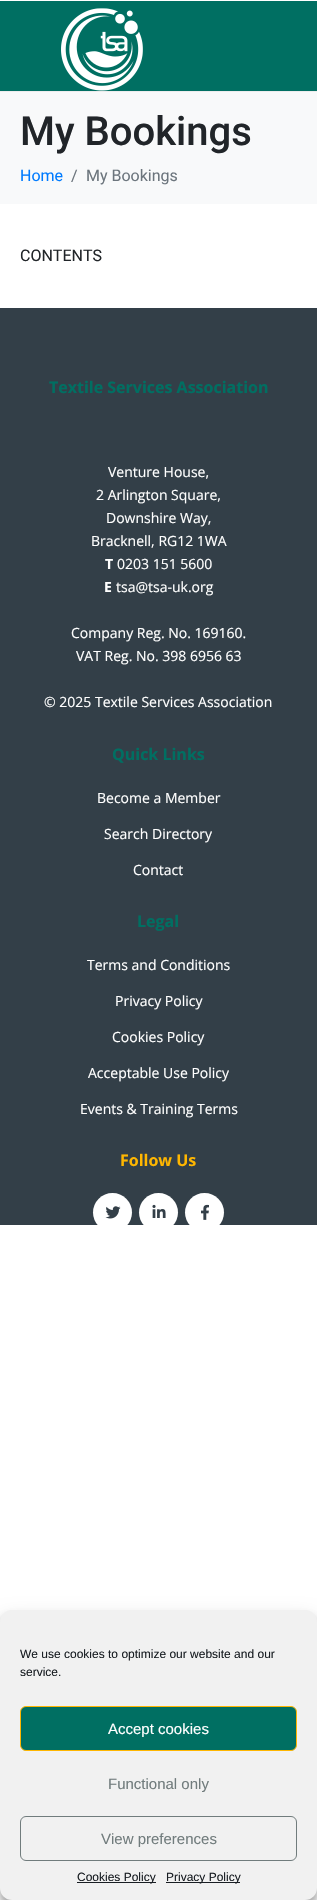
void draw(SkCanvas* canvas) {
  SkPaint paint;
  paint.setAntiAlias(true);
  auto face = [&](const char* family, int weight, float size, bool italic = false) {
    SkFontStyle style(weight, SkFontStyle::kNormal_Width,
      italic ? SkFontStyle::kItalic_Slant : SkFontStyle::kUpright_Slant);
    SkFont result(fontMgr->matchFamilyStyle(family, style), size);
    result.setSubpixel(true);
    return result;
  };
  auto paste = [&](const char* path, float x, float y, float w, float h) {
    auto image = SkImages::DeferredFromEncodedData(SkData::MakeFromFileName(path));
    canvas->drawImageRect(image, SkRect::MakeXYWH(x, y, w, h), SkSamplingOptions());
  };
  canvas->clear(0xffffffff);
  paint.setColor(0xff006f62);
  canvas->drawRect(SkRect::MakeXYWH(0, 1, 317, 90), paint);
  paint.setColor(0xffededed);
  canvas->drawRect(SkRect::MakeXYWH(0, 91, 317, 1), paint);
  paste("img/1.png", 61, 8, 82, 83);
  paint.setColor(0xfff8f9fa);
  canvas->drawRect(SkRect::MakeXYWH(0, 92, 317, 112), paint);
  paint.setColor(0xff333f48);
  canvas->drawRect(SkRect::MakeXYWH(0, 308, 317, 917), paint);
  paint.setColor(0xffffffff);
  canvas->drawCircle(112.5f, 1212.5f, 19.5f, paint);
  paste("img/2.png", 105, 1206, 16, 13);
  canvas->drawCircle(158.5f, 1212.5f, 19.5f, paint);
  paste("img/3.png", 152, 1204, 14, 14);
  canvas->drawCircle(204.5f, 1212.5f, 19.5f, paint);
  paste("img/4.png", 201, 1204, 8, 16);
  paint.setColor(0x3b000000);
  paint.setMaskFilter(SkMaskFilter::MakeBlur(kNormal_SkBlurStyle, 3));
  canvas->drawRoundRect(SkRect::MakeXYWH(0, 1616, 317, 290), 12, 12, paint);
  paint.setMaskFilter(nullptr);
  paint.setColor(0x30000000);
  paint.setMaskFilter(SkMaskFilter::MakeBlur(kNormal_SkBlurStyle, 10));
  canvas->drawRoundRect(SkRect::MakeXYWH(0, 1620, 317, 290), 12, 12, paint);
  paint.setMaskFilter(nullptr);
  paint.setColor(0xfff1f1f1);
  canvas->drawRoundRect(SkRect::MakeXYWH(0, 1610, 317, 290), 12, 12, paint);
  paint.setColor(0xff006f62);
  canvas->drawRoundRect(SkRect::MakeXYWH(20.5f, 1706.5f, 276, 44), 5.5f, 5.5f, paint);
  paint.setStroke(true);
  paint.setStrokeWidth(1);
  paint.setColor(0xffffb600);
  canvas->drawRoundRect(SkRect::MakeXYWH(20.5f, 1706.5f, 276, 44), 5.5f, 5.5f, paint);
  paint.setColor(0xff717c7d);
  canvas->drawRoundRect(SkRect::MakeXYWH(20.5f, 1816.5f, 276, 44), 5.5f, 5.5f, paint);
  paint.setStroke(false);
  paint.setColor(0xff191e23);
  canvas->drawRect(SkRect::MakeXYWH(77, 1882, 79, 1), paint);
  canvas->drawRect(SkRect::MakeXYWH(166, 1882, 74, 1), paint);
  auto f0 = face("Roboto", 500, 40);
  paint.setColor(0xff212529);
  canvas->drawString("My Bookings", 20, 145, f0, paint);
  auto f1 = face("Roboto", 400, 16);
  paint.setColor(0xff007bff);
  canvas->drawString("Home", 20, 181, f1, paint);
  paint.setColor(0xff6c757d);
  canvas->drawString("/", 71, 181, f1, paint);
  canvas->drawString("My Bookings", 86, 181, f1, paint);
  paint.setColor(0xff212529);
  canvas->drawString("CONTENTS", 20, 261, f1, paint);
  auto f2 = face("Open Sans", 700, 16);
  paint.setColor(0xff006f62);
  canvas->drawString("Textile Services Association", 49, 393, f2, paint);
  auto f3 = face("Open Sans", 400, 14);
  paint.setColor(0xffffffff);
  {
    const struct { const char* s; float x, y; } items[] = {
      {"Venture House,", 108, 477},
      {"2 Arlington Square,", 96, 500},
      {"Downshire Way,", 106, 523},
      {"Bracknell, RG12 1WA", 91, 546},
    };
    for (auto [s, x, y] : items) {
      canvas->drawString(s, x, y, f3, paint);
    }
  }
  auto f4 = face("Open Sans", 700, 14);
  canvas->drawString("T", 105, 569, f4, paint);
  canvas->drawString("0203 151 5600", 117, 569, f3, paint);
  canvas->drawString("E", 104, 592, f4, paint);
  {
    const struct { const char* s; float x, y; } items[] = {
      {"tsa@tsa-uk.org", 116, 592},
      {"Company Reg. No. 169160.", 71, 638},
      {"VAT Reg. No. 398 6956 63", 76, 661},
      {"© 2025 Textile Services Association", 44, 707},
    };
    for (auto [s, x, y] : items) {
      canvas->drawString(s, x, y, f3, paint);
    }
  }
  paint.setColor(0xff006f62);
  canvas->drawString("Quick Links", 112, 760, f2, paint);
  paint.setColor(0xffffffff);
  {
    const struct { const char* s; float x, y; } items[] = {
      {"Become a Member", 97, 803},
      {"Search Directory", 104, 839},
      {"Contact", 133, 875},
    };
    for (auto [s, x, y] : items) {
      canvas->drawString(s, x, y, f3, paint);
    }
  }
  paint.setColor(0xff006f62);
  canvas->drawString("Legal", 137, 927, f2, paint);
  paint.setColor(0xffffffff);
  {
    const struct { const char* s; float x, y; } items[] = {
      {"Terms and Conditions", 87, 970},
      {"Privacy Policy", 115, 1006},
      {"Cookies Policy", 112, 1042},
      {"Acceptable Use Policy", 88, 1078},
      {"Events & Training Terms", 80, 1114},
    };
    for (auto [s, x, y] : items) {
      canvas->drawString(s, x, y, f3, paint);
    }
  }
  paint.setColor(0xffffb600);
  canvas->drawString("Follow Us", 120, 1166, f2, paint);
  auto f5 = face("Liberation Sans", 400, 12);
  paint.setColor(0xff191e23);
  canvas->drawString("We use cookies to optimize our website and our", 20, 1658, f5, paint);
  canvas->drawString("service.", 20, 1676, f5, paint);
  auto f6 = face("Liberation Sans", 400, 15);
  paint.setColor(0xffffffff);
  canvas->drawString("Accept cookies", 108, 1734, f6, paint);
  paint.setColor(0xff717c7d);
  canvas->drawString("Functional only", 108, 1789, f6, paint);
  canvas->drawString("View preferences", 101, 1844, f6, paint);
  paint.setColor(0xff191e23);
  canvas->drawString("Cookies Policy", 77, 1881, f5, paint);
  canvas->drawString("Privacy Policy", 166, 1881, f5, paint);
}
